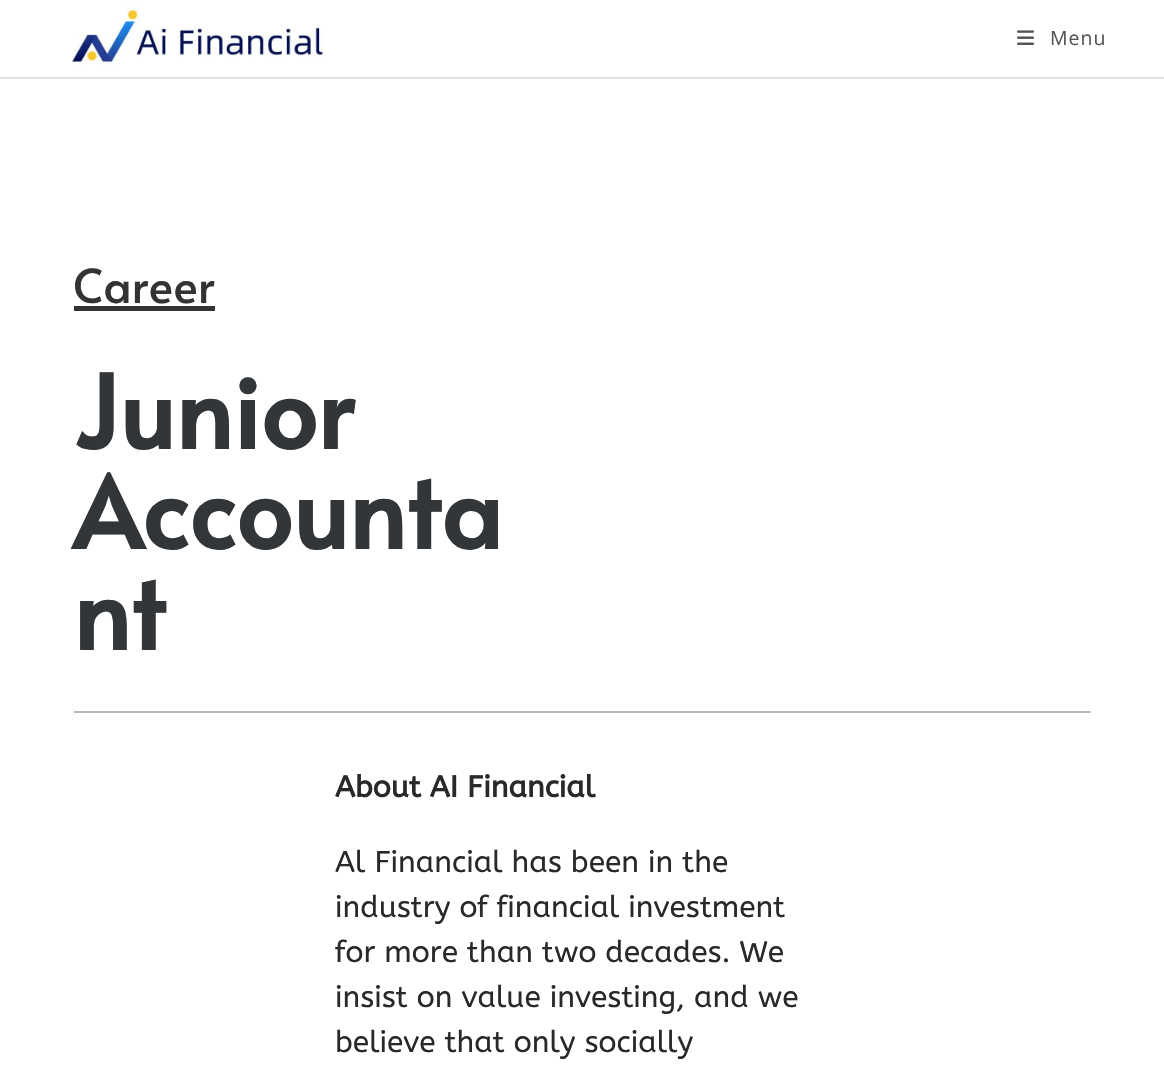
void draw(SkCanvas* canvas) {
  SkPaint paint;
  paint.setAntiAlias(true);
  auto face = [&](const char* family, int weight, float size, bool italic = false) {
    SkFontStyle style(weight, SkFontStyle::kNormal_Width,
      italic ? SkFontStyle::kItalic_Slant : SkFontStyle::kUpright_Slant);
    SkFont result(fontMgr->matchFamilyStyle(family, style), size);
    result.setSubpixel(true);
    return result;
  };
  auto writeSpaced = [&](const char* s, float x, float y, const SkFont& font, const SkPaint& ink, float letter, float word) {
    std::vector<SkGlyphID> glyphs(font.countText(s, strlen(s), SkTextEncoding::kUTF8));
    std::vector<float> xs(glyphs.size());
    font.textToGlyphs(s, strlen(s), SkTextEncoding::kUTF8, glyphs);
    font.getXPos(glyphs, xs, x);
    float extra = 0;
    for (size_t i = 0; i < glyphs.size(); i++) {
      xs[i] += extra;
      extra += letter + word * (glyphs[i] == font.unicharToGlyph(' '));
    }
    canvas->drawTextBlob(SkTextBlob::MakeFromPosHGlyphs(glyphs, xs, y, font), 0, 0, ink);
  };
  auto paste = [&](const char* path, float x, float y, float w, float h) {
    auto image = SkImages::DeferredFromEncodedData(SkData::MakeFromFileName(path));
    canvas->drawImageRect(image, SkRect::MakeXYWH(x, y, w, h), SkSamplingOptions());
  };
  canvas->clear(0xffffffff);
  paint.setColor(0xffe0e0e0);
  canvas->drawRect(SkRect::MakeXYWH(0, 77, 1164, 2), paint);
  paste("img/1.png", 72, 6, 251, 62);
  paste("img/2.png", 1017, 30, 17, 15);
  paint.setColor(0xff333333);
  canvas->drawRect(SkRect::MakeXYWH(74, 306, 141, 5), paint);
  paint.setColor(0xffb9b9b9);
  canvas->drawRect(SkRect::MakeXYWH(74, 711, 1017, 2), paint);
  auto f0 = face("Open Sans", 400, 19.5f);
  paint.setColor(0xff555555);
  writeSpaced("Menu", 1050, 45, f0, paint, 1, 0);
  auto f1 = face("Alata", 400, 46.5f);
  paint.setColor(0xff333333);
  canvas->drawString("Career", 73, 303, f1, paint);
  auto f2 = face("Alata", 700, 100.5f);
  paint.setColor(0xff323639);
  {
    const struct { const char* s; float x, y; } items[] = {
      {"Junior", 73, 449},
      {"Accounta", 73, 549},
      {"nt", 73, 650},
    };
    for (auto [s, x, y] : items) {
      canvas->drawString(s, x, y, f2, paint);
    }
  }
  auto f3 = face("ABeeZee", 700, 30);
  paint.setColor(0xff2a2829);
  canvas->drawString("About AI Financial", 335, 797, f3, paint);
  auto f4 = face("ABeeZee", 400, 30);
  {
    const struct { const char* s; float x, y; } items[] = {
      {"Al Financial has been in the", 335, 872},
      {"industry of financial investment", 335, 917},
      {"for more than two decades. We", 335, 962},
      {"insist on value investing, and we", 335, 1007},
      {"believe that only socially", 335, 1052},
    };
    for (auto [s, x, y] : items) {
      canvas->drawString(s, x, y, f4, paint);
    }
  }
}
